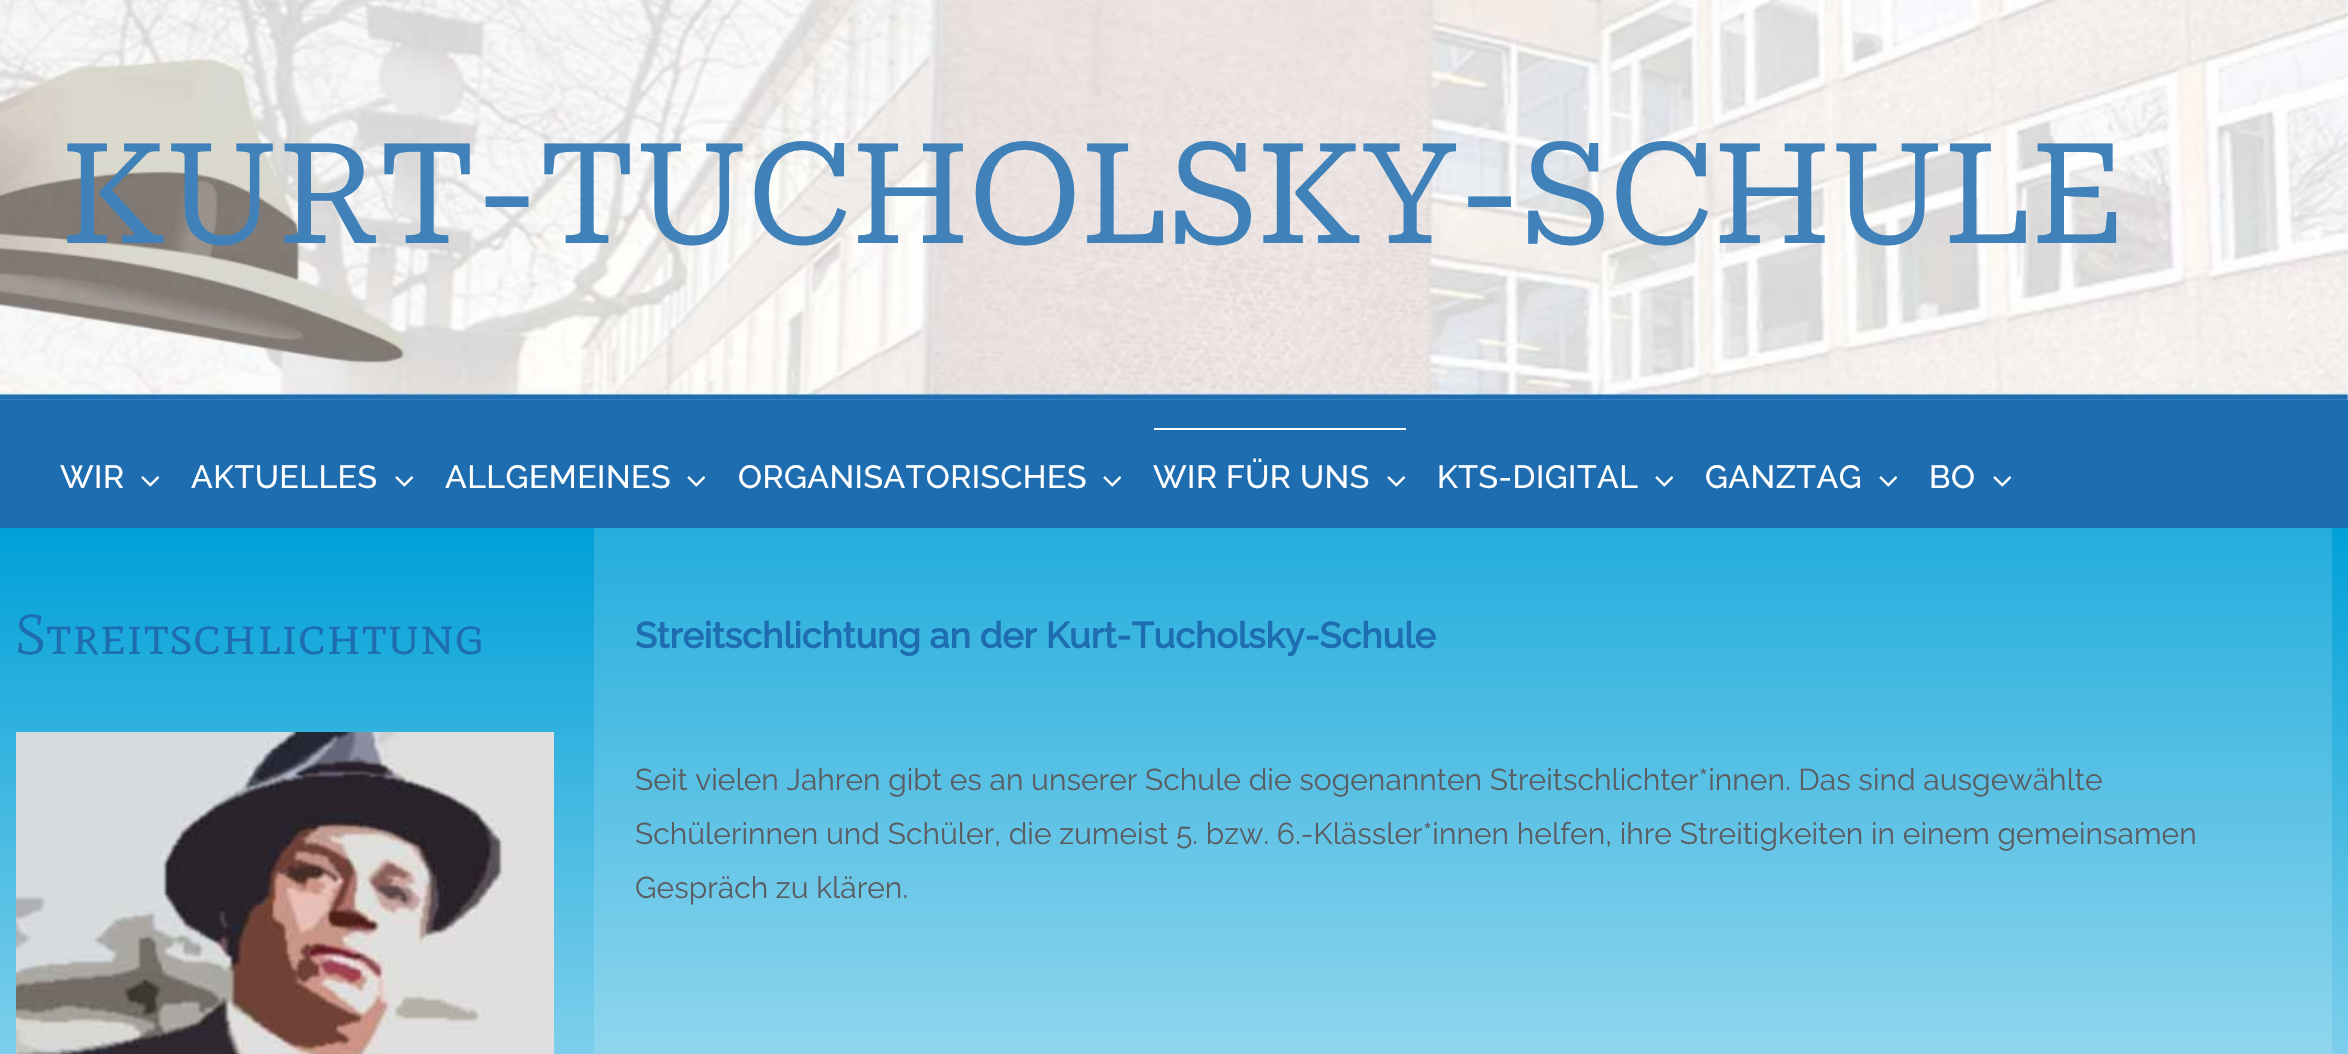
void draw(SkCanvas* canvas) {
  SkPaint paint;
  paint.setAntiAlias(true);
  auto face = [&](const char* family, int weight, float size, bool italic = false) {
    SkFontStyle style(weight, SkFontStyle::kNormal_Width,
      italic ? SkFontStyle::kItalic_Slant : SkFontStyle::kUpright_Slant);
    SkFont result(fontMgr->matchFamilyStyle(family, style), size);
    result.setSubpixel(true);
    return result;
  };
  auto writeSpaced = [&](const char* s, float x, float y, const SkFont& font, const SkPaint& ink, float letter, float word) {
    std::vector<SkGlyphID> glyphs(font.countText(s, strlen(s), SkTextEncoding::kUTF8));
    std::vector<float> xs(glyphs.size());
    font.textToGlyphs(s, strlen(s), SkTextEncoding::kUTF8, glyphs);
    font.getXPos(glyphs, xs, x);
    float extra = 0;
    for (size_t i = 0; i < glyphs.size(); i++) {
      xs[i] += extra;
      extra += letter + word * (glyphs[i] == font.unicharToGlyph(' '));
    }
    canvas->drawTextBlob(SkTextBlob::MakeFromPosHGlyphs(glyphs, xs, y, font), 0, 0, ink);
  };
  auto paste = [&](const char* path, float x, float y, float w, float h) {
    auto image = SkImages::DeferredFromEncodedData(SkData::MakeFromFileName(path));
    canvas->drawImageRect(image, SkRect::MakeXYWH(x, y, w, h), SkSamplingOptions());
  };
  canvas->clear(0xffffffff);
  paste("img/1.png", 0, 0, 2348, 400);
  paint.setColor(0xff1d6db0);
  canvas->drawRect(SkRect::MakeXYWH(0, 400, 2348, 128), paint);
  paste("img/2.png", 141, 476, 19, 11);
  paste("img/2.png", 395, 476, 19, 11);
  paste("img/2.png", 687, 476, 19, 11);
  paste("img/2.png", 1103, 476, 19, 11);
  paint.setColor(0xffffffff);
  canvas->drawRect(SkRect::MakeXYWH(1154, 428, 252, 2), paint);
  paste("img/2.png", 1387, 476, 19, 11);
  paste("img/2.png", 1655, 476, 19, 11);
  paste("img/2.png", 1879, 476, 19, 11);
  paste("img/2.png", 1993, 476, 19, 11);
  {
    const SkColor colors[] = {0xff00a0d8, 0xffffffff};
    const float stops[] = {0, 1};
    const SkPoint ends[] = {{1174, 528}, {1174, 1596}};
    paint.setShader(SkGradientShader::MakeLinear(ends, colors, stops, 2, SkTileMode::kClamp));
    paint.setAlpha(255);
  }
  canvas->drawRect(SkRect::MakeXYWH(0, 528, 2348, 526), paint);
  {
    const SkColor colors[] = {0xff24addd, 0xffffffff};
    const float stops[] = {0, 1};
    const SkPoint ends[] = {{1174, 528}, {1174, 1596}};
    paint.setShader(SkGradientShader::MakeLinear(ends, colors, stops, 2, SkTileMode::kClamp));
    paint.setAlpha(255);
  }
  canvas->drawRect(SkRect::MakeXYWH(594, 528, 1738, 526), paint);
  paste("img/3.png", 16, 732, 538, 322);
  auto f0 = face("Roboto Serif", 400, 140);
  paint.setShader(nullptr);
  paint.setColor(0xff3f81b8);
  writeSpaced("KURT-TUCHOLSKY-SCHULE", 60, 243, f0, paint, -2.1f, 0);
  auto f1 = face("Raleway", 500, 32);
  paint.setColor(0xffffffff);
  {
    const struct { const char* s; float x, y; } items[] = {
      {"WIR", 60, 488},
      {"AKTUELLES", 191, 488},
      {"ALLGEMEINES", 445, 488},
      {"ORGANISATORISCHES", 738, 488},
      {"WIR FÜR UNS", 1153, 488},
      {"KTS-DIGITAL", 1437, 488},
      {"GANZTAG", 1705, 488},
      {"BO", 1929, 488},
    };
    for (auto [s, x, y] : items) {
      writeSpaced(s, x, y, f1, paint, 0.5f, 0);
    }
  }
  auto f2 = face("Mate SC", 400, 56);
  paint.setColor(0xff1d6db0);
  writeSpaced("Streitschlichtung", 15, 654, f2, paint, 0.03f, 0);
  auto f3 = face("Raleway", 700, 36);
  writeSpaced("Streitschlichtung an der Kurt-Tucholsky-Schule", 635, 648, f3, paint, -0.05f, 0);
  auto f4 = face("Raleway", 400, 30);
  paint.setColor(0xff5a5d62);
  {
    const struct { const char* s; float x, y; } items[] = {
      {"Seit vielen Jahren gibt es an unserer Schule die sogenannten Streitschlichter*innen. Das sind ausgewählte", 635, 790},
      {"Schülerinnen und Schüler, die zumeist 5. bzw. 6.-Klässler*innen helfen, ihre Streitigkeiten in einem gemeinsamen", 635, 844},
      {"Gespräch zu klären.", 635, 898},
    };
    for (auto [s, x, y] : items) {
      writeSpaced(s, x, y, f4, paint, 0.03f, 0);
    }
  }
}
